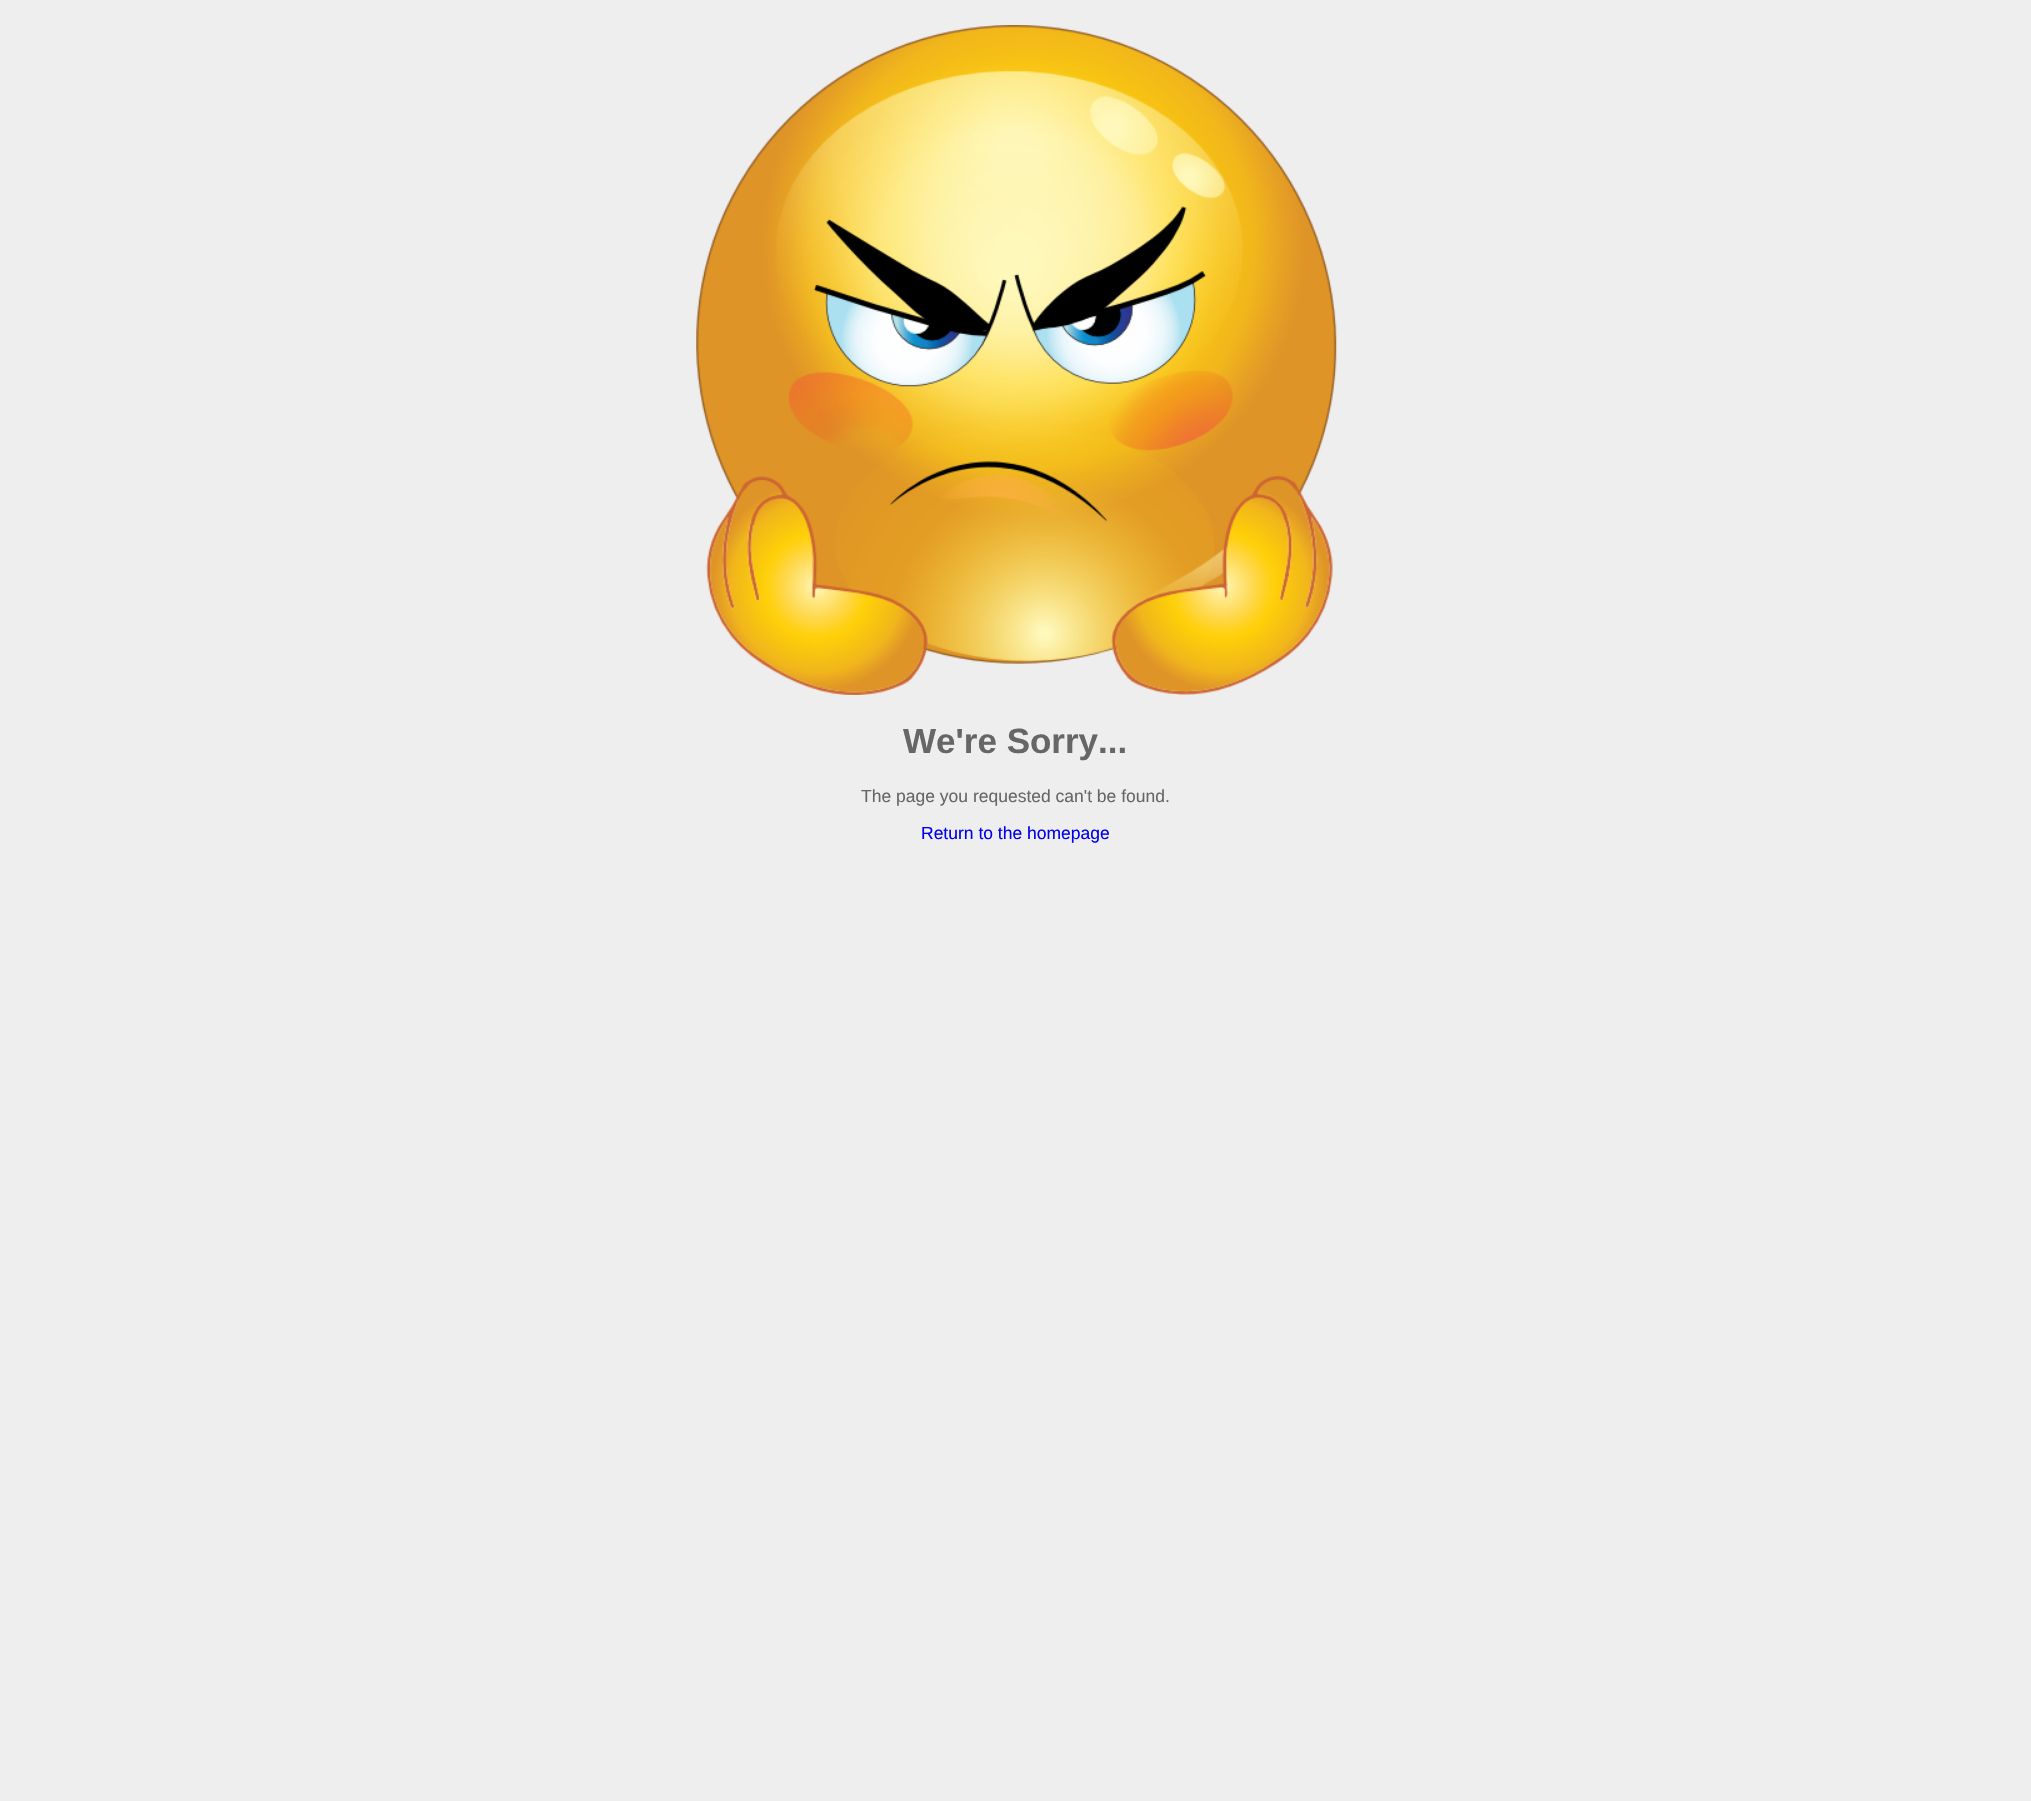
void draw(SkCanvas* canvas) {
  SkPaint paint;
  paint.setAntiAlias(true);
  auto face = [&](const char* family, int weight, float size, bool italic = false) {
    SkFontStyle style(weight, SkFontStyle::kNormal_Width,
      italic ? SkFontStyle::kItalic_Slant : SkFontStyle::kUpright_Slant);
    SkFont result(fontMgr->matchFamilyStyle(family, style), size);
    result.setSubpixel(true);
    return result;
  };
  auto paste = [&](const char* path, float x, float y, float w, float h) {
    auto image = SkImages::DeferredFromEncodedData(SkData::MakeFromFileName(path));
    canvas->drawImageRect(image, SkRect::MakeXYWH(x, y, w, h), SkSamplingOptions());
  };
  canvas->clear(0xffeeeeee);
  paste("img/1.png", 696, 25, 641, 670);
  auto f0 = face("Liberation Sans", 700, 35);
  paint.setColor(0xff666666);
  canvas->drawString("We're Sorry...", 903, 753, f0, paint);
  auto f1 = face("Liberation Sans", 400, 17.5f);
  canvas->drawString("The page you requested can't be found.", 861, 802, f1, paint);
  paint.setColor(0xff0000ee);
  canvas->drawString("Return to the homepage", 921, 839, f1, paint);
}
